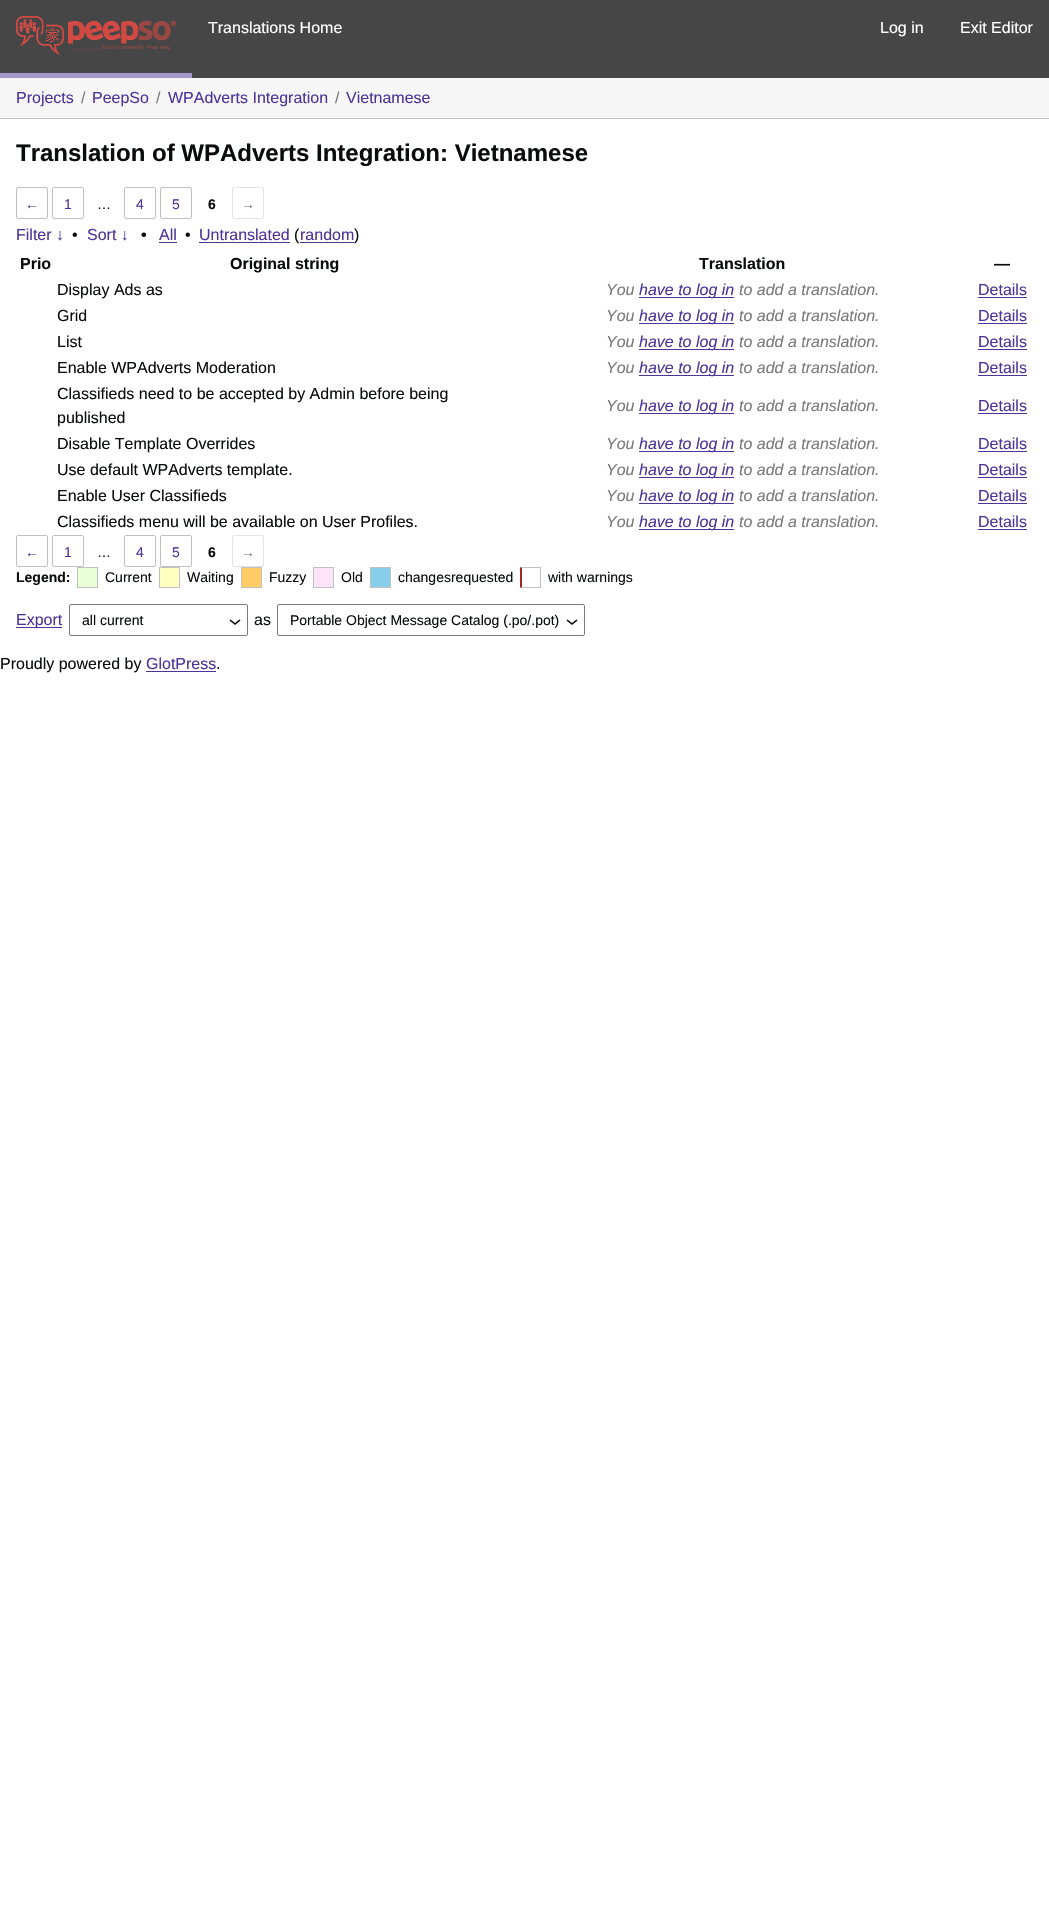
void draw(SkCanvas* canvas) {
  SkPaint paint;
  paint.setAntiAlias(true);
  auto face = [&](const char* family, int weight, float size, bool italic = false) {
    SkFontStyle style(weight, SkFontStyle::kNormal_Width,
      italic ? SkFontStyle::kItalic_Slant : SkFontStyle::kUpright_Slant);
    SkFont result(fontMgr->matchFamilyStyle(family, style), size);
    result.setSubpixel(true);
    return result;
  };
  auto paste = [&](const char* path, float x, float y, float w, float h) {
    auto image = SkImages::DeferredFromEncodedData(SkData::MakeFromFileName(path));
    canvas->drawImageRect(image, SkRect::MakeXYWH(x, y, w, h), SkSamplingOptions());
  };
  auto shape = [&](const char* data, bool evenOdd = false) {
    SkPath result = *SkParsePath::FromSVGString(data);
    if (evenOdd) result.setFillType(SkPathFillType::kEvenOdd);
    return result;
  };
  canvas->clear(0xffffffff);
  paint.setColor(0xff464646);
  canvas->drawRect(SkRect::MakeXYWH(0, 0, 1049, 78), paint);
  paint.setColor(0xffa597c9);
  canvas->drawRect(SkRect::MakeXYWH(0, 73, 192, 5), paint);
  paste("img/1.png", 16, 16, 160, 39);
  paint.setColor(0xfff6f6f6);
  canvas->drawRect(SkRect::MakeXYWH(0, 78, 1049, 40), paint);
  paint.setColor(0xffc1c1c1);
  canvas->drawRect(SkRect::MakeXYWH(0, 118, 1049, 1), paint);
  paint.setStroke(true);
  paint.setStrokeWidth(1);
  canvas->drawRoundRect(SkRect::MakeXYWH(16.5f, 187.5f, 31, 31), 1.5f, 1.5f, paint);
  canvas->drawRoundRect(SkRect::MakeXYWH(52.5f, 187.5f, 31, 31), 1.5f, 1.5f, paint);
  canvas->drawRoundRect(SkRect::MakeXYWH(124.5f, 187.5f, 31, 31), 1.5f, 1.5f, paint);
  canvas->drawRoundRect(SkRect::MakeXYWH(160.5f, 187.5f, 31, 31), 1.5f, 1.5f, paint);
  paint.setColor(0xffe4e4e4);
  canvas->drawRoundRect(SkRect::MakeXYWH(232.5f, 187.5f, 31, 31), 1.5f, 1.5f, paint);
  paint.setStroke(false);
  {
    const struct { float x, y, w, h; SkColor color; } items[] = {
      {159, 242, 18, 1, 0xff4e3499},
      {199, 242, 91, 1, 0xff4e3499},
      {300, 242, 54, 1, 0xff4e3499},
      {639, 297, 95, 1, 0xff4e3499},
      {978, 297, 49, 1, 0xff4e3499},
      {639, 323, 95, 1, 0xff4e3499},
      {978, 323, 49, 1, 0xff4e3499},
      {639, 349, 95, 1, 0xff4e3499},
      {978, 349, 49, 1, 0xff4e3499},
      {639, 375, 95, 1, 0xff4e3499},
      {978, 375, 49, 1, 0xff4e3499},
      {639, 413, 95, 1, 0xff4e3499},
      {978, 413, 49, 1, 0xff4e3499},
      {639, 451, 95, 1, 0xff4e3499},
      {978, 451, 49, 1, 0xff4e3499},
      {639, 477, 95, 1, 0xff4e3499},
      {978, 477, 49, 1, 0xff4e3499},
      {639, 503, 95, 1, 0xff4e3499},
      {978, 503, 49, 1, 0xff4e3499},
      {639, 529, 95, 1, 0xff4e3499},
      {978, 529, 49, 1, 0xff4e3499},
    };
    for (auto [x, y, w, h, color] : items) {
      paint.setColor(color);
      canvas->drawRect(SkRect::MakeXYWH(x, y, w, h), paint);
    }
  }
  paint.setStroke(true);
  paint.setColor(0xffc1c1c1);
  canvas->drawRoundRect(SkRect::MakeXYWH(16.5f, 535.5f, 31, 31), 1.5f, 1.5f, paint);
  canvas->drawRoundRect(SkRect::MakeXYWH(52.5f, 535.5f, 31, 31), 1.5f, 1.5f, paint);
  canvas->drawRoundRect(SkRect::MakeXYWH(124.5f, 535.5f, 31, 31), 1.5f, 1.5f, paint);
  canvas->drawRoundRect(SkRect::MakeXYWH(160.5f, 535.5f, 31, 31), 1.5f, 1.5f, paint);
  paint.setColor(0xffe4e4e4);
  canvas->drawRoundRect(SkRect::MakeXYWH(232.5f, 535.5f, 31, 31), 1.5f, 1.5f, paint);
  paint.setStroke(false);
  paint.setColor(0xffe9ffd8);
  canvas->drawRect(SkRect::MakeXYWH(77.5f, 567.5f, 20, 20), paint);
  paint.setStroke(true);
  paint.setColor(0xffc1c1c1);
  canvas->drawRect(SkRect::MakeXYWH(77.5f, 567.5f, 20, 20), paint);
  paint.setStroke(false);
  paint.setColor(0xffffffc2);
  canvas->drawRect(SkRect::MakeXYWH(159.5f, 567.5f, 20, 20), paint);
  paint.setStroke(true);
  paint.setColor(0xffc1c1c1);
  canvas->drawRect(SkRect::MakeXYWH(159.5f, 567.5f, 20, 20), paint);
  paint.setStroke(false);
  paint.setColor(0xffffcc66);
  canvas->drawRect(SkRect::MakeXYWH(241.5f, 567.5f, 20, 20), paint);
  paint.setStroke(true);
  paint.setColor(0xffc1c1c1);
  canvas->drawRect(SkRect::MakeXYWH(241.5f, 567.5f, 20, 20), paint);
  paint.setStroke(false);
  paint.setColor(0xfffee4f8);
  canvas->drawRect(SkRect::MakeXYWH(313.5f, 567.5f, 20, 20), paint);
  paint.setStroke(true);
  paint.setColor(0xffc1c1c1);
  canvas->drawRect(SkRect::MakeXYWH(313.5f, 567.5f, 20, 20), paint);
  paint.setStroke(false);
  paint.setColor(0xff87ceeb);
  canvas->drawRect(SkRect::MakeXYWH(370.5f, 567.5f, 20, 20), paint);
  paint.setStroke(true);
  paint.setColor(0xffc1c1c1);
  canvas->drawRect(SkRect::MakeXYWH(370.5f, 567.5f, 20, 20), paint);
  paint.setStroke(false);
  canvas->drawPath(shape("M520 567H541L540 568H522Z"), paint);
  canvas->drawRect(SkRect::MakeXYWH(540, 567, 1, 21), paint);
  canvas->drawPath(shape("M541 588H520L522 587H540Z"), paint);
  paint.setColor(0xffa62626);
  canvas->drawPath(shape("M520 588V567L522 568V587Z"), paint);
  paint.setColor(0xff4e3499);
  canvas->drawRect(SkRect::MakeXYWH(16, 627, 46, 1), paint);
  paste("img/2.png", 229, 619, 12, 6);
  paint.setStroke(true);
  paint.setColor(0xff7a7a7a);
  canvas->drawRoundRect(SkRect::MakeXYWH(69.5f, 604.5f, 178, 31), 1.5f, 1.5f, paint);
  paste("img/2.png", 566, 619, 12, 6);
  canvas->drawRoundRect(SkRect::MakeXYWH(277.5f, 604.5f, 307, 31), 1.5f, 1.5f, paint);
  paint.setStroke(false);
  paint.setColor(0xff4e3499);
  canvas->drawRect(SkRect::MakeXYWH(146, 671, 70, 1), paint);
  auto f0 = face("Liberation Sans", 400, 16);
  paint.setColor(0xffffffff);
  {
    const struct { const char* s; float x, y; } items[] = {
      {"Translations Home", 208, 33},
      {"Log in", 880, 33},
      {"Exit Editor", 960, 33},
    };
    for (auto [s, x, y] : items) {
      canvas->drawString(s, x, y, f0, paint);
    }
  }
  paint.setColor(0xff4e3499);
  canvas->drawString("Projects", 16, 103, f0, paint);
  paint.setColor(0xff7a7a7a);
  canvas->drawString("/", 81, 103, f0, paint);
  paint.setColor(0xff4e3499);
  canvas->drawString("PeepSo", 92, 103, f0, paint);
  paint.setColor(0xff7a7a7a);
  canvas->drawString("/", 156, 103, f0, paint);
  paint.setColor(0xff4e3499);
  canvas->drawString("WPAdverts Integration", 168, 103, f0, paint);
  paint.setColor(0xff7a7a7a);
  canvas->drawString("/", 335, 103, f0, paint);
  paint.setColor(0xff4e3499);
  canvas->drawString("Vietnamese", 346, 103, f0, paint);
  auto f1 = face("Liberation Sans", 700, 24);
  paint.setColor(0xff0b0c0c);
  canvas->drawString("Translation of WPAdverts Integration: Vietnamese", 16, 161, f1, paint);
  auto f2 = face("Liberation Sans", 400, 14);
  paint.setColor(0xff4e3499);
  canvas->drawString("←", 25, 209, f2, paint);
  canvas->drawString("1", 64, 209, f2, paint);
  paint.setColor(0xff0b0c0c);
  canvas->drawString("…", 97, 209, f2, paint);
  paint.setColor(0xff4e3499);
  canvas->drawString("4", 136, 209, f2, paint);
  canvas->drawString("5", 172, 209, f2, paint);
  auto f3 = face("Liberation Sans", 700, 14);
  paint.setColor(0xff0b0c0c);
  canvas->drawString("6", 208, 209, f3, paint);
  paint.setColor(0xff7a7a7a);
  canvas->drawString("→", 241, 209, f2, paint);
  paint.setColor(0xff4e3499);
  canvas->drawString("Filter ↓", 16, 240, f0, paint);
  paint.setColor(0xff0b0c0c);
  canvas->drawString("•", 72, 240, f0, paint);
  paint.setColor(0xff4e3499);
  canvas->drawString("Sort ↓", 87, 240, f0, paint);
  auto f4 = face("Liberation Sans", 700, 16);
  paint.setColor(0xff0b0c0c);
  canvas->drawString("•", 141, 240, f4, paint);
  paint.setColor(0xff4e3499);
  canvas->drawString("All", 159, 240, f0, paint);
  paint.setColor(0xff0b0c0c);
  canvas->drawString("•", 185, 240, f0, paint);
  paint.setColor(0xff4e3499);
  canvas->drawString("Untranslated", 199, 240, f0, paint);
  paint.setColor(0xff0b0c0c);
  canvas->drawString("(", 294, 240, f0, paint);
  paint.setColor(0xff4e3499);
  canvas->drawString("random", 300, 240, f0, paint);
  paint.setColor(0xff0b0c0c);
  canvas->drawString(")", 354, 240, f0, paint);
  {
    const struct { const char* s; float x, y; } items[] = {
      {"Prio", 20, 269},
      {"Original string", 230, 269},
      {"Translation", 699, 269},
      {"—", 994, 269},
    };
    for (auto [s, x, y] : items) {
      canvas->drawString(s, x, y, f4, paint);
    }
  }
  canvas->drawString("Display Ads as", 57, 295, f0, paint);
  auto f5 = face("Liberation Sans", 400, 16, true);
  paint.setColor(0xff7a7a7a);
  canvas->drawString("You", 606, 295, f5, paint);
  paint.setColor(0xff4e3499);
  canvas->drawString("have to log in", 639, 295, f5, paint);
  paint.setColor(0xff7a7a7a);
  canvas->drawString("to add a translation.", 739, 295, f5, paint);
  paint.setColor(0xff4e3499);
  canvas->drawString("Details", 978, 295, f0, paint);
  paint.setColor(0xff0b0c0c);
  canvas->drawString("Grid", 57, 321, f0, paint);
  paint.setColor(0xff7a7a7a);
  canvas->drawString("You", 606, 321, f5, paint);
  paint.setColor(0xff4e3499);
  canvas->drawString("have to log in", 639, 321, f5, paint);
  paint.setColor(0xff7a7a7a);
  canvas->drawString("to add a translation.", 739, 321, f5, paint);
  paint.setColor(0xff4e3499);
  canvas->drawString("Details", 978, 321, f0, paint);
  paint.setColor(0xff0b0c0c);
  canvas->drawString("List", 57, 347, f0, paint);
  paint.setColor(0xff7a7a7a);
  canvas->drawString("You", 606, 347, f5, paint);
  paint.setColor(0xff4e3499);
  canvas->drawString("have to log in", 639, 347, f5, paint);
  paint.setColor(0xff7a7a7a);
  canvas->drawString("to add a translation.", 739, 347, f5, paint);
  paint.setColor(0xff4e3499);
  canvas->drawString("Details", 978, 347, f0, paint);
  paint.setColor(0xff0b0c0c);
  canvas->drawString("Enable WPAdverts Moderation", 57, 373, f0, paint);
  paint.setColor(0xff7a7a7a);
  canvas->drawString("You", 606, 373, f5, paint);
  paint.setColor(0xff4e3499);
  canvas->drawString("have to log in", 639, 373, f5, paint);
  paint.setColor(0xff7a7a7a);
  canvas->drawString("to add a translation.", 739, 373, f5, paint);
  paint.setColor(0xff4e3499);
  canvas->drawString("Details", 978, 373, f0, paint);
  paint.setColor(0xff0b0c0c);
  canvas->drawString("Classifieds need to be accepted by Admin before being", 57, 399, f0, paint);
  canvas->drawString("published", 57, 423, f0, paint);
  paint.setColor(0xff7a7a7a);
  canvas->drawString("You", 606, 411, f5, paint);
  paint.setColor(0xff4e3499);
  canvas->drawString("have to log in", 639, 411, f5, paint);
  paint.setColor(0xff7a7a7a);
  canvas->drawString("to add a translation.", 739, 411, f5, paint);
  paint.setColor(0xff4e3499);
  canvas->drawString("Details", 978, 411, f0, paint);
  paint.setColor(0xff0b0c0c);
  canvas->drawString("Disable Template Overrides", 57, 449, f0, paint);
  paint.setColor(0xff7a7a7a);
  canvas->drawString("You", 606, 449, f5, paint);
  paint.setColor(0xff4e3499);
  canvas->drawString("have to log in", 639, 449, f5, paint);
  paint.setColor(0xff7a7a7a);
  canvas->drawString("to add a translation.", 739, 449, f5, paint);
  paint.setColor(0xff4e3499);
  canvas->drawString("Details", 978, 449, f0, paint);
  paint.setColor(0xff0b0c0c);
  canvas->drawString("Use default WPAdverts template.", 57, 475, f0, paint);
  paint.setColor(0xff7a7a7a);
  canvas->drawString("You", 606, 475, f5, paint);
  paint.setColor(0xff4e3499);
  canvas->drawString("have to log in", 639, 475, f5, paint);
  paint.setColor(0xff7a7a7a);
  canvas->drawString("to add a translation.", 739, 475, f5, paint);
  paint.setColor(0xff4e3499);
  canvas->drawString("Details", 978, 475, f0, paint);
  paint.setColor(0xff0b0c0c);
  canvas->drawString("Enable User Classifieds", 57, 501, f0, paint);
  paint.setColor(0xff7a7a7a);
  canvas->drawString("You", 606, 501, f5, paint);
  paint.setColor(0xff4e3499);
  canvas->drawString("have to log in", 639, 501, f5, paint);
  paint.setColor(0xff7a7a7a);
  canvas->drawString("to add a translation.", 739, 501, f5, paint);
  paint.setColor(0xff4e3499);
  canvas->drawString("Details", 978, 501, f0, paint);
  paint.setColor(0xff0b0c0c);
  canvas->drawString("Classifieds menu will be available on User Profiles.", 57, 527, f0, paint);
  paint.setColor(0xff7a7a7a);
  canvas->drawString("You", 606, 527, f5, paint);
  paint.setColor(0xff4e3499);
  canvas->drawString("have to log in", 639, 527, f5, paint);
  paint.setColor(0xff7a7a7a);
  canvas->drawString("to add a translation.", 739, 527, f5, paint);
  paint.setColor(0xff4e3499);
  canvas->drawString("Details", 978, 527, f0, paint);
  canvas->drawString("←", 25, 557, f2, paint);
  canvas->drawString("1", 64, 557, f2, paint);
  paint.setColor(0xff0b0c0c);
  canvas->drawString("…", 97, 557, f2, paint);
  paint.setColor(0xff4e3499);
  canvas->drawString("4", 136, 557, f2, paint);
  canvas->drawString("5", 172, 557, f2, paint);
  paint.setColor(0xff0b0c0c);
  canvas->drawString("6", 208, 557, f3, paint);
  paint.setColor(0xff7a7a7a);
  canvas->drawString("→", 241, 557, f2, paint);
  paint.setColor(0xff0b0c0c);
  canvas->drawString("Legend:", 16, 582, f3, paint);
  {
    const struct { const char* s; float x, y; } items[] = {
      {"Current", 105, 582},
      {"Waiting", 187, 582},
      {"Fuzzy", 269, 582},
      {"Old", 341, 582},
      {"changesrequested", 398, 582},
      {"with warnings", 548, 582},
    };
    for (auto [s, x, y] : items) {
      canvas->drawString(s, x, y, f2, paint);
    }
  }
  paint.setColor(0xff4e3499);
  canvas->drawString("Export", 16, 625, f0, paint);
  paint.setColor(0xff0b0c0c);
  canvas->drawString("all current", 82, 625, f2, paint);
  canvas->drawString("as", 254, 625, f0, paint);
  canvas->drawString("Portable Object Message Catalog (.po/.pot)", 290, 625, f2, paint);
  canvas->drawString("Proudly powered by", 0, 669, f0, paint);
  paint.setColor(0xff4e3499);
  canvas->drawString("GlotPress", 146, 669, f0, paint);
  paint.setColor(0xff0b0c0c);
  canvas->drawString(".", 216, 669, f0, paint);
}
